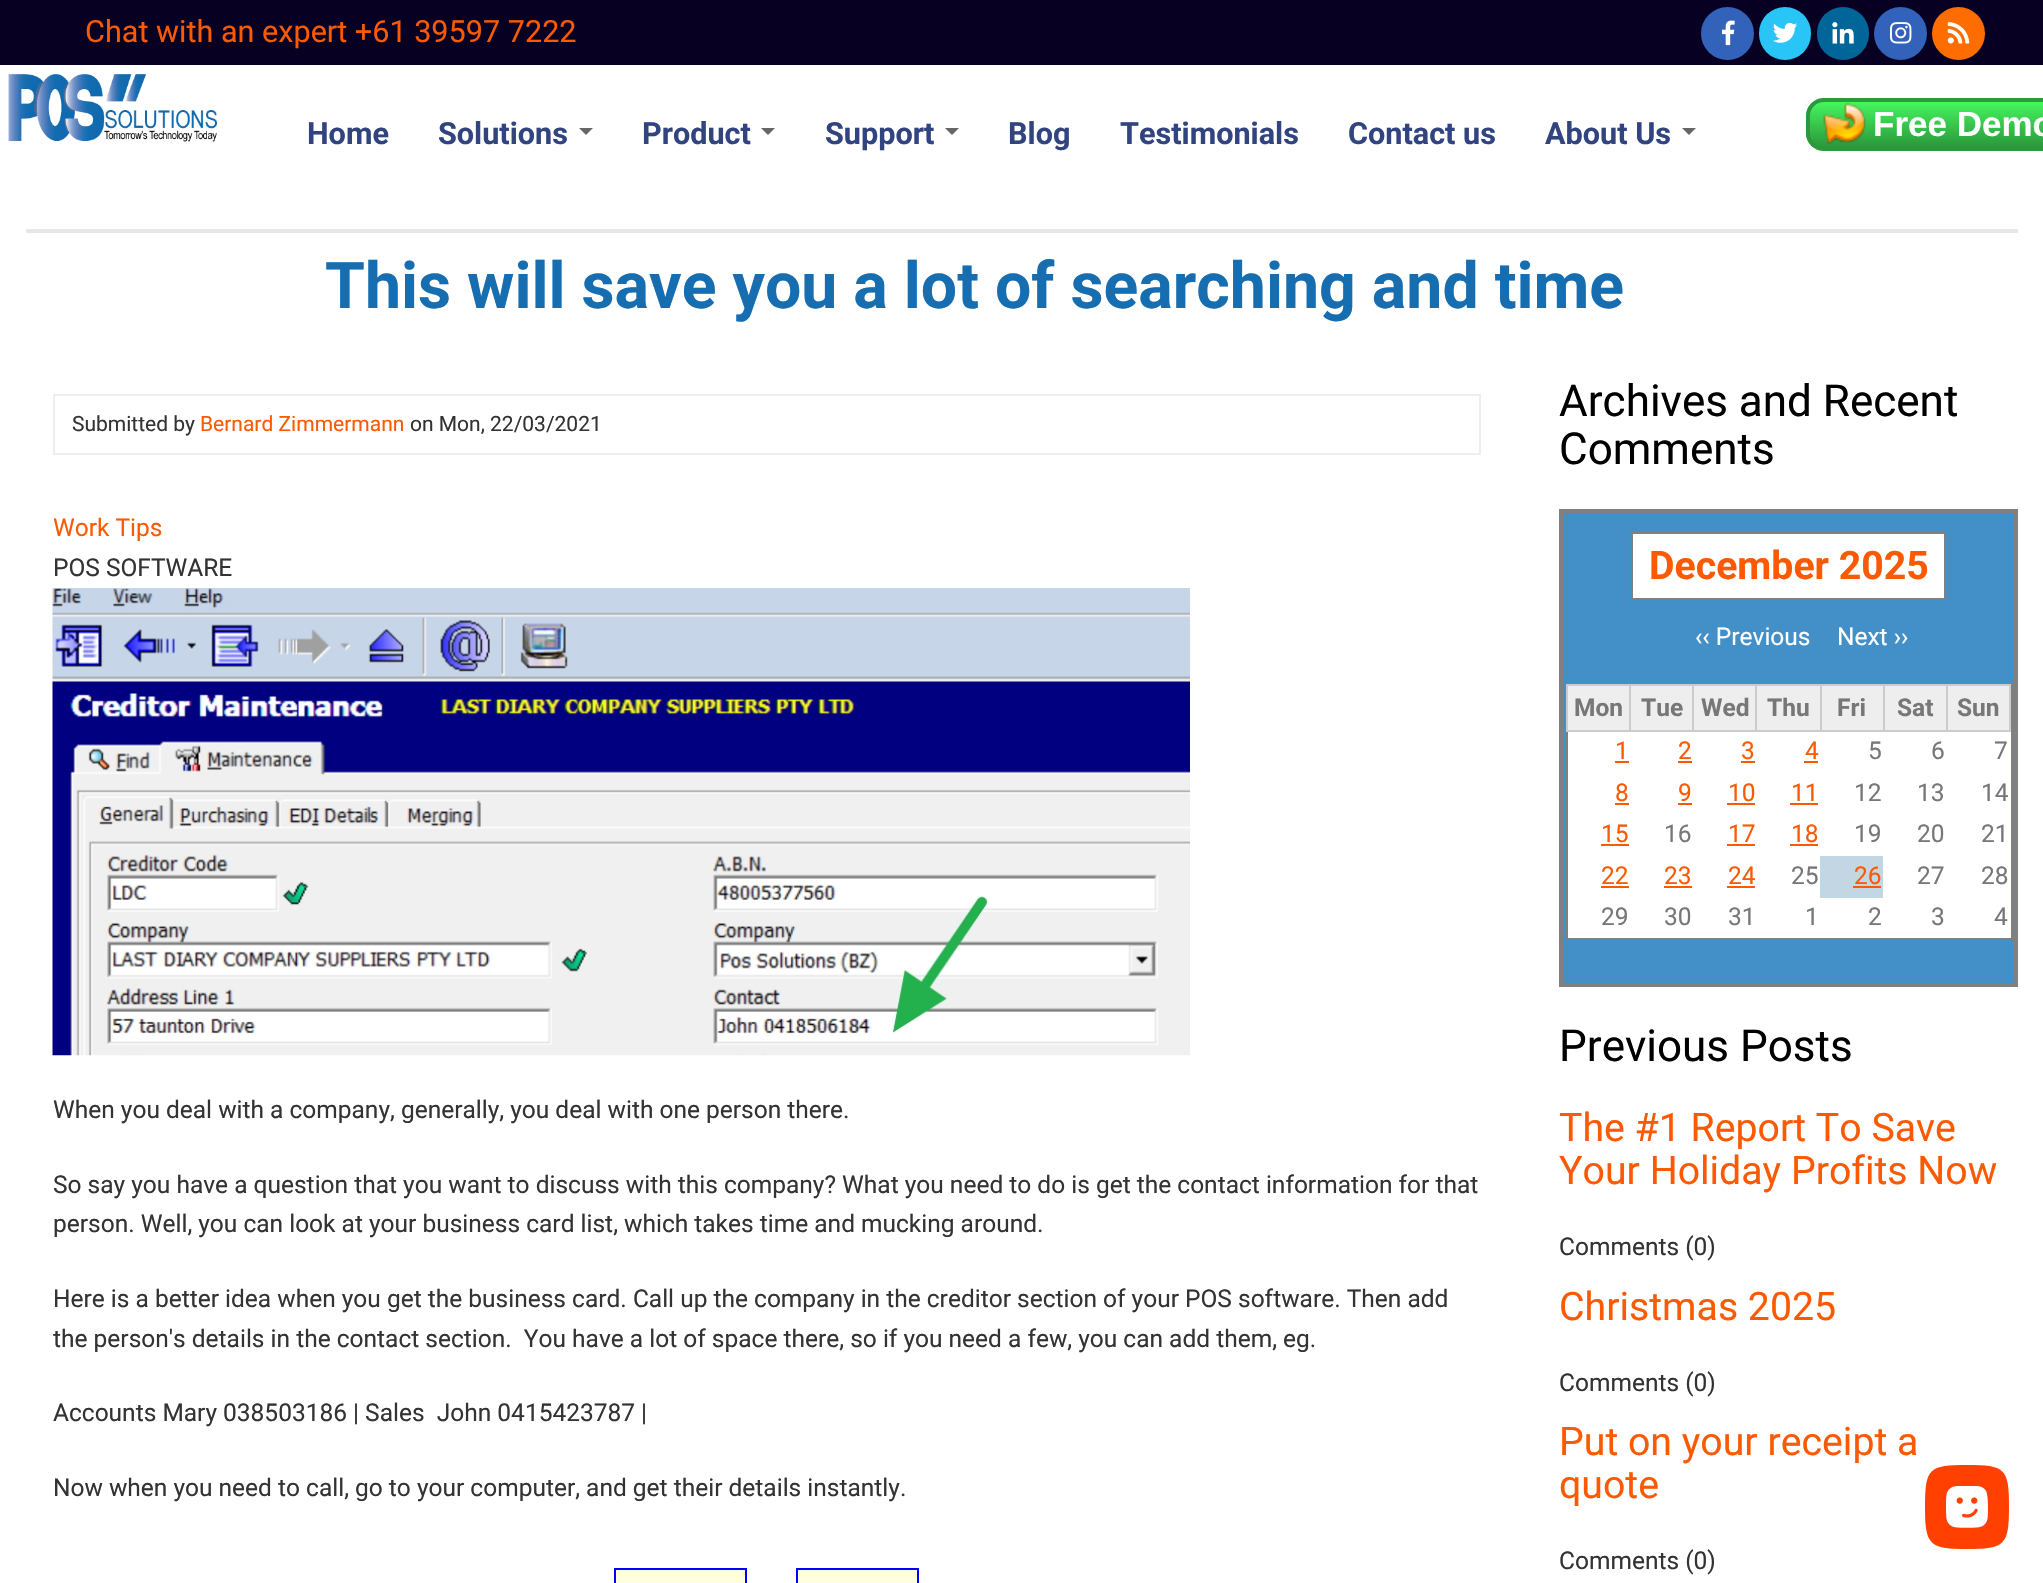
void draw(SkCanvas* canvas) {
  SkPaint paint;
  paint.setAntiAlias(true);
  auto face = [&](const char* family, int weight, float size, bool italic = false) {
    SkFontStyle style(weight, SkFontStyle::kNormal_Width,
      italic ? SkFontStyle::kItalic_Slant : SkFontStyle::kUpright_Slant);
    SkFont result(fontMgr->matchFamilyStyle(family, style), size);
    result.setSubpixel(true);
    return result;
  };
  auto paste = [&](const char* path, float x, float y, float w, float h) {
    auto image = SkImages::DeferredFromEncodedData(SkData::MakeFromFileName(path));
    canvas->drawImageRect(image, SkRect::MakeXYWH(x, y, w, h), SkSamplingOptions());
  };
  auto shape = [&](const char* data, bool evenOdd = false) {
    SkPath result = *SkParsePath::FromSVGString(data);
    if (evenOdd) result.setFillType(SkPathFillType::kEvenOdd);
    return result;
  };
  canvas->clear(0xffffffff);
  paint.setColor(0xff070023);
  canvas->drawRect(SkRect::MakeXYWH(0, 0, 2043, 65), paint);
  paint.setColor(0xff3262b9);
  canvas->drawCircle(1727.5f, 33.5f, 26.5f, paint);
  paste("img/1.png", 1722, 20, 13, 26);
  paint.setColor(0xff29c5f6);
  canvas->drawRoundRect(SkRect::MakeXYWH(1759, 7, 52, 53), 26, 26, paint);
  paste("img/2.png", 1773, 22, 25, 21);
  paint.setColor(0xff006699);
  canvas->drawRoundRect(SkRect::MakeXYWH(1817, 7, 52, 53), 26, 26, paint);
  paste("img/3.png", 1832, 22, 22, 22);
  paint.setColor(0xff3262b9);
  canvas->drawCircle(1900.5f, 33.5f, 26.5f, paint);
  paste("img/4.png", 1890, 22, 22, 22);
  paint.setColor(0xffff6d00);
  canvas->drawCircle(1958.5f, 33.5f, 26.5f, paint);
  paste("img/5.png", 1947, 22, 23, 22);
  paste("img/6.png", 8, 74, 209, 68);
  paint.setColor(0xff666666);
  canvas->drawPath(shape("M579 128H593L586 135Z"), paint);
  canvas->drawPath(shape("M761 128H775L768 135Z"), paint);
  canvas->drawPath(shape("M945 128H959L952 135Z"), paint);
  canvas->drawPath(shape("M1682 128H1696L1689 135Z"), paint);
  canvas->save();
  canvas->clipPath(shape("M1824 98H2061C2071 98 2079 106 2079 116V133C2079 143 2071 151 2061 151H1824C1814 151 1806 143 1806 133V116C1806 106 1814 98 1824 98Z"), true);
  {
    const SkColor colors[] = {0xff46f760, 0xff2b983b};
    const float stops[] = {0, 1};
    const SkPoint ends[] = {{1943, 101}, {1943, 147}};
    paint.setShader(SkGradientShader::MakeLinear(ends, colors, stops, 2, SkTileMode::kClamp));
    paint.setAlpha(255);
  }
  canvas->drawRect(SkRect::MakeXYWH(1806, 102, 237, 45), paint);
  canvas->restore();
  paint.setStroke(true);
  paint.setStrokeWidth(4);
  paint.setShader(nullptr);
  paint.setColor(0xff2b983b);
  canvas->drawRoundRect(SkRect::MakeXYWH(1808, 100, 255, 49), 16, 16, paint);
  paste("img/7.png", 1823, 103, 43, 41);
  paint.setStroke(false);
  paint.setColor(0xffe7e7e7);
  canvas->drawRect(SkRect::MakeXYWH(26, 229, 1992, 4), paint);
  paint.setStroke(true);
  paint.setStrokeWidth(2);
  paint.setColor(0xffeeeeee);
  canvas->drawRect(SkRect::MakeXYWH(54, 395, 1426, 59), paint);
  paste("img/8.png", 52, 588, 1138, 468);
  paint.setStroke(false);
  paint.setColor(0xffffffe0);
  canvas->drawRect(SkRect::MakeXYWH(615, 1569, 131, 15), paint);
  paint.setStroke(true);
  paint.setColor(0xff0000ff);
  canvas->drawRect(SkRect::MakeXYWH(615, 1569, 131, 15), paint);
  paint.setStroke(false);
  paint.setColor(0xffffffe0);
  canvas->drawRect(SkRect::MakeXYWH(797, 1569, 121, 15), paint);
  paint.setStroke(true);
  paint.setColor(0xff0000ff);
  canvas->drawRect(SkRect::MakeXYWH(797, 1569, 121, 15), paint);
  paint.setStroke(false);
  paint.setColor(0xff4290c7);
  canvas->drawRect(SkRect::MakeXYWH(1561, 511, 455, 474), paint);
  paint.setStroke(true);
  paint.setStrokeWidth(4);
  paint.setColor(0xff808080);
  canvas->drawRect(SkRect::MakeXYWH(1561, 511, 455, 474), paint);
  paint.setStroke(false);
  paint.setColor(0xffffffff);
  canvas->drawRect(SkRect::MakeXYWH(1632, 533, 313, 66), paint);
  paint.setStroke(true);
  paint.setStrokeWidth(2);
  paint.setColor(0xff808080);
  canvas->drawRect(SkRect::MakeXYWH(1632, 533, 313, 66), paint);
  canvas->drawRect(SkRect::MakeXYWH(1566, 684, 446, 255), paint);
  paint.setStroke(false);
  {
    const struct { float x, y, w, h; SkColor color; } items[] = {
      {1568, 686, 61, 44, 0xffeeeeee},
      {1946, 684, 65, 2, 0xffcccccc},
      {2009, 684, 2, 48, 0xffcccccc},
      {1946, 730, 65, 2, 0xffcccccc},
      {1946, 684, 2, 48, 0xffcccccc},
      {1883, 684, 65, 2, 0xffcccccc},
      {1883, 730, 65, 2, 0xffcccccc},
      {1883, 684, 2, 48, 0xffcccccc},
      {1820, 684, 65, 2, 0xffcccccc},
      {1820, 730, 65, 2, 0xffcccccc},
      {1820, 684, 2, 48, 0xffcccccc},
      {1755, 684, 67, 2, 0xffcccccc},
      {1755, 730, 67, 2, 0xffcccccc},
      {1755, 684, 2, 48, 0xffcccccc},
      {1692, 684, 65, 2, 0xffcccccc},
      {1692, 730, 65, 2, 0xffcccccc},
      {1692, 684, 2, 48, 0xffcccccc},
      {1629, 684, 65, 2, 0xffcccccc},
      {1629, 730, 65, 2, 0xffcccccc},
      {1629, 684, 2, 48, 0xffcccccc},
      {1566, 684, 65, 2, 0xffcccccc},
      {1566, 730, 65, 2, 0xffcccccc},
      {1566, 684, 2, 48, 0xffcccccc},
      {1631, 686, 61, 44, 0xffeeeeee},
      {1694, 686, 61, 44, 0xffeeeeee},
      {1757, 686, 63, 44, 0xffeeeeee},
      {1822, 686, 61, 44, 0xffeeeeee},
      {1885, 686, 61, 44, 0xffeeeeee},
      {1948, 686, 61, 44, 0xffeeeeee},
      {1568, 732, 443, 206, 0xffffffff},
      {1615, 761, 14, 2, 0xfffb5a02},
      {1678, 761, 14, 2, 0xfffb5a02},
      {1741, 761, 14, 2, 0xfffb5a02},
      {1804, 761, 14, 2, 0xfffb5a02},
      {1615, 803, 14, 2, 0xfffb5a02},
      {1678, 803, 14, 2, 0xfffb5a02},
      {1727, 803, 28, 2, 0xfffb5a02},
      {1790, 803, 28, 2, 0xfffb5a02},
      {1601, 844, 28, 2, 0xfffb5a02},
      {1727, 844, 28, 2, 0xfffb5a02},
      {1790, 844, 28, 2, 0xfffb5a02},
      {1601, 886, 28, 2, 0xfffb5a02},
      {1664, 886, 28, 2, 0xfffb5a02},
      {1727, 886, 28, 2, 0xfffb5a02},
      {1820, 856, 63, 42, 0xffc3d6e4},
      {1853, 886, 28, 2, 0xfffb5a02},
    };
    for (auto [x, y, w, h, color] : items) {
      paint.setColor(color);
      canvas->drawRect(SkRect::MakeXYWH(x, y, w, h), paint);
    }
  }
  paint.setColor(0xffff4000);
  canvas->drawPath(shape("M1925 1507C1925 1468 1929 1465 1967 1465C2005 1465 2009 1468 2009 1507C2009 1545 2005 1549 1967 1549C1929 1549 1925 1545 1925 1507Z"), paint);
  paste("img/9.png", 1946, 1486, 42, 42);
  auto f0 = face("Roboto", 400, 30.6f);
  paint.setColor(0xfffb5a02);
  canvas->drawString("Chat with an expert +61 39597 7222", 85, 42, f0, paint);
  auto f1 = face("Roboto", 700, 30.6f);
  paint.setColor(0xff31447f);
  {
    const struct { const char* s; float x, y; } items[] = {
      {"Home", 307, 144},
      {"Solutions", 438, 144},
      {"Product", 642, 144},
      {"Support", 825, 144},
      {"Blog", 1008, 144},
      {"Testimonials", 1120, 144},
      {"Contact us", 1348, 144},
      {"About Us", 1545, 144},
    };
    for (auto [s, x, y] : items) {
      canvas->drawString(s, x, y, f1, paint);
    }
  }
  auto f2 = face("Liberation Sans", 700, 35);
  paint.setColor(0xffffffff);
  canvas->drawString("Free Demo", 1873, 136, f2, paint);
  auto f3 = face("Roboto", 700, 64.4f);
  paint.setColor(0xff166eb1);
  canvas->drawString("This will save you a lot of searching and time", 325, 308, f3, paint);
  auto f4 = face("Roboto", 400, 21);
  paint.setColor(0xff333333);
  canvas->drawString("Submitted by", 72, 431, f4, paint);
  paint.setColor(0xfffb5a02);
  canvas->drawString("Bernard Zimmermann", 200, 431, f4, paint);
  paint.setColor(0xff333333);
  canvas->drawString("on Mon, 22/03/2021", 410, 431, f4, paint);
  auto f5 = face("Roboto", 400, 24.5f);
  paint.setColor(0xfffb5a02);
  canvas->drawString("Work Tips", 53, 536, f5, paint);
  paint.setColor(0xff333333);
  {
    const struct { const char* s; float x, y; } items[] = {
      {"POS SOFTWARE", 53, 576},
      {"When you deal with a company, generally, you deal with one person there.", 53, 1118},
      {"So say you have a question that you want to discuss with this company? What you need to do is get the contact information for that", 53, 1193},
      {"person. Well, you can look at your business card list, which takes time and mucking around.", 53, 1232},
      {"Here is a better idea when you get the business card. Call up the company in the creditor section of your POS software. Then add", 53, 1307},
      {"the person's details in the contact section.  You have a lot of space there, so if you need a few, you can add them, eg.", 53, 1347},
      {"Accounts Mary 038503186 | Sales  John 0415423787 |", 53, 1421},
      {"Now when you need to call, go to your computer, and get their details instantly.", 53, 1496},
    };
    for (auto [s, x, y] : items) {
      canvas->drawString(s, x, y, f5, paint);
    }
  }
  auto f6 = face("Roboto", 400, 44);
  paint.setColor(0xff000000);
  canvas->drawString("Archives and Recent", 1559, 416, f6, paint);
  canvas->drawString("Comments", 1559, 464, f6, paint);
  auto f7 = face("Roboto", 700, 39.25f);
  paint.setColor(0xfffb5a02);
  canvas->drawString("December 2025", 1649, 579, f7, paint);
  paint.setColor(0xffffffff);
  canvas->drawString("‹‹ Previous", 1695, 645, f5, paint);
  canvas->drawString("Next ››", 1837, 645, f5, paint);
  auto f8 = face("Roboto", 700, 24.5f);
  paint.setColor(0xff777777);
  {
    const struct { const char* s; float x, y; } items[] = {
      {"Mon", 1574, 716},
      {"Tue", 1641, 716},
      {"Wed", 1701, 716},
      {"Thu", 1767, 716},
      {"Fri", 1837, 716},
      {"Sat", 1897, 716},
      {"Sun", 1957, 716},
    };
    for (auto [s, x, y] : items) {
      canvas->drawString(s, x, y, f8, paint);
    }
  }
  paint.setColor(0xfffb5a02);
  {
    const struct { const char* s; float x, y; } items[] = {
      {"1", 1615, 759},
      {"2", 1678, 759},
      {"3", 1741, 759},
      {"4", 1805, 759},
    };
    for (auto [s, x, y] : items) {
      canvas->drawString(s, x, y, f5, paint);
    }
  }
  paint.setColor(0xff777777);
  {
    const struct { const char* s; float x, y; } items[] = {
      {"5", 1868, 759},
      {"6", 1931, 759},
      {"7", 1994, 759},
    };
    for (auto [s, x, y] : items) {
      canvas->drawString(s, x, y, f5, paint);
    }
  }
  paint.setColor(0xfffb5a02);
  {
    const struct { const char* s; float x, y; } items[] = {
      {"8", 1615, 801},
      {"9", 1678, 801},
      {"10", 1728, 801},
      {"11", 1791, 801},
    };
    for (auto [s, x, y] : items) {
      canvas->drawString(s, x, y, f5, paint);
    }
  }
  paint.setColor(0xff777777);
  {
    const struct { const char* s; float x, y; } items[] = {
      {"12", 1854, 801},
      {"13", 1917, 801},
      {"14", 1981, 801},
    };
    for (auto [s, x, y] : items) {
      canvas->drawString(s, x, y, f5, paint);
    }
  }
  paint.setColor(0xfffb5a02);
  canvas->drawString("15", 1601, 842, f5, paint);
  paint.setColor(0xff777777);
  canvas->drawString("16", 1664, 842, f5, paint);
  paint.setColor(0xfffb5a02);
  canvas->drawString("17", 1728, 842, f5, paint);
  canvas->drawString("18", 1791, 842, f5, paint);
  paint.setColor(0xff777777);
  {
    const struct { const char* s; float x, y; } items[] = {
      {"19", 1854, 842},
      {"20", 1917, 842},
      {"21", 1981, 842},
    };
    for (auto [s, x, y] : items) {
      canvas->drawString(s, x, y, f5, paint);
    }
  }
  paint.setColor(0xfffb5a02);
  {
    const struct { const char* s; float x, y; } items[] = {
      {"22", 1601, 884},
      {"23", 1664, 884},
      {"24", 1728, 884},
    };
    for (auto [s, x, y] : items) {
      canvas->drawString(s, x, y, f5, paint);
    }
  }
  paint.setColor(0xff777777);
  canvas->drawString("25", 1791, 884, f5, paint);
  paint.setColor(0xfffb5a02);
  canvas->drawString("26", 1854, 884, f5, paint);
  paint.setColor(0xff777777);
  {
    const struct { const char* s; float x, y; } items[] = {
      {"27", 1917, 884},
      {"28", 1981, 884},
      {"29", 1601, 925},
      {"30", 1664, 925},
      {"31", 1728, 925},
      {"1", 1805, 925},
      {"2", 1868, 925},
      {"3", 1931, 925},
      {"4", 1994, 925},
    };
    for (auto [s, x, y] : items) {
      canvas->drawString(s, x, y, f5, paint);
    }
  }
  paint.setColor(0xff000000);
  canvas->drawString("Previous Posts", 1559, 1061, f6, paint);
  auto f9 = face("Roboto", 400, 39.25f);
  paint.setColor(0xfffb5a02);
  canvas->drawString("The #1 Report To Save", 1559, 1141, f9, paint);
  canvas->drawString("Your Holiday Profits Now", 1559, 1184, f9, paint);
  paint.setColor(0xff333333);
  canvas->drawString("Comments (0)", 1559, 1255, f5, paint);
  paint.setColor(0xfffb5a02);
  canvas->drawString("Christmas 2025", 1559, 1320, f9, paint);
  paint.setColor(0xff333333);
  canvas->drawString("Comments (0)", 1559, 1391, f5, paint);
  paint.setColor(0xfffb5a02);
  canvas->drawString("Put on your receipt a", 1559, 1455, f9, paint);
  canvas->drawString("quote", 1559, 1498, f9, paint);
  paint.setColor(0xff333333);
  canvas->drawString("Comments (0)", 1559, 1569, f5, paint);
}
